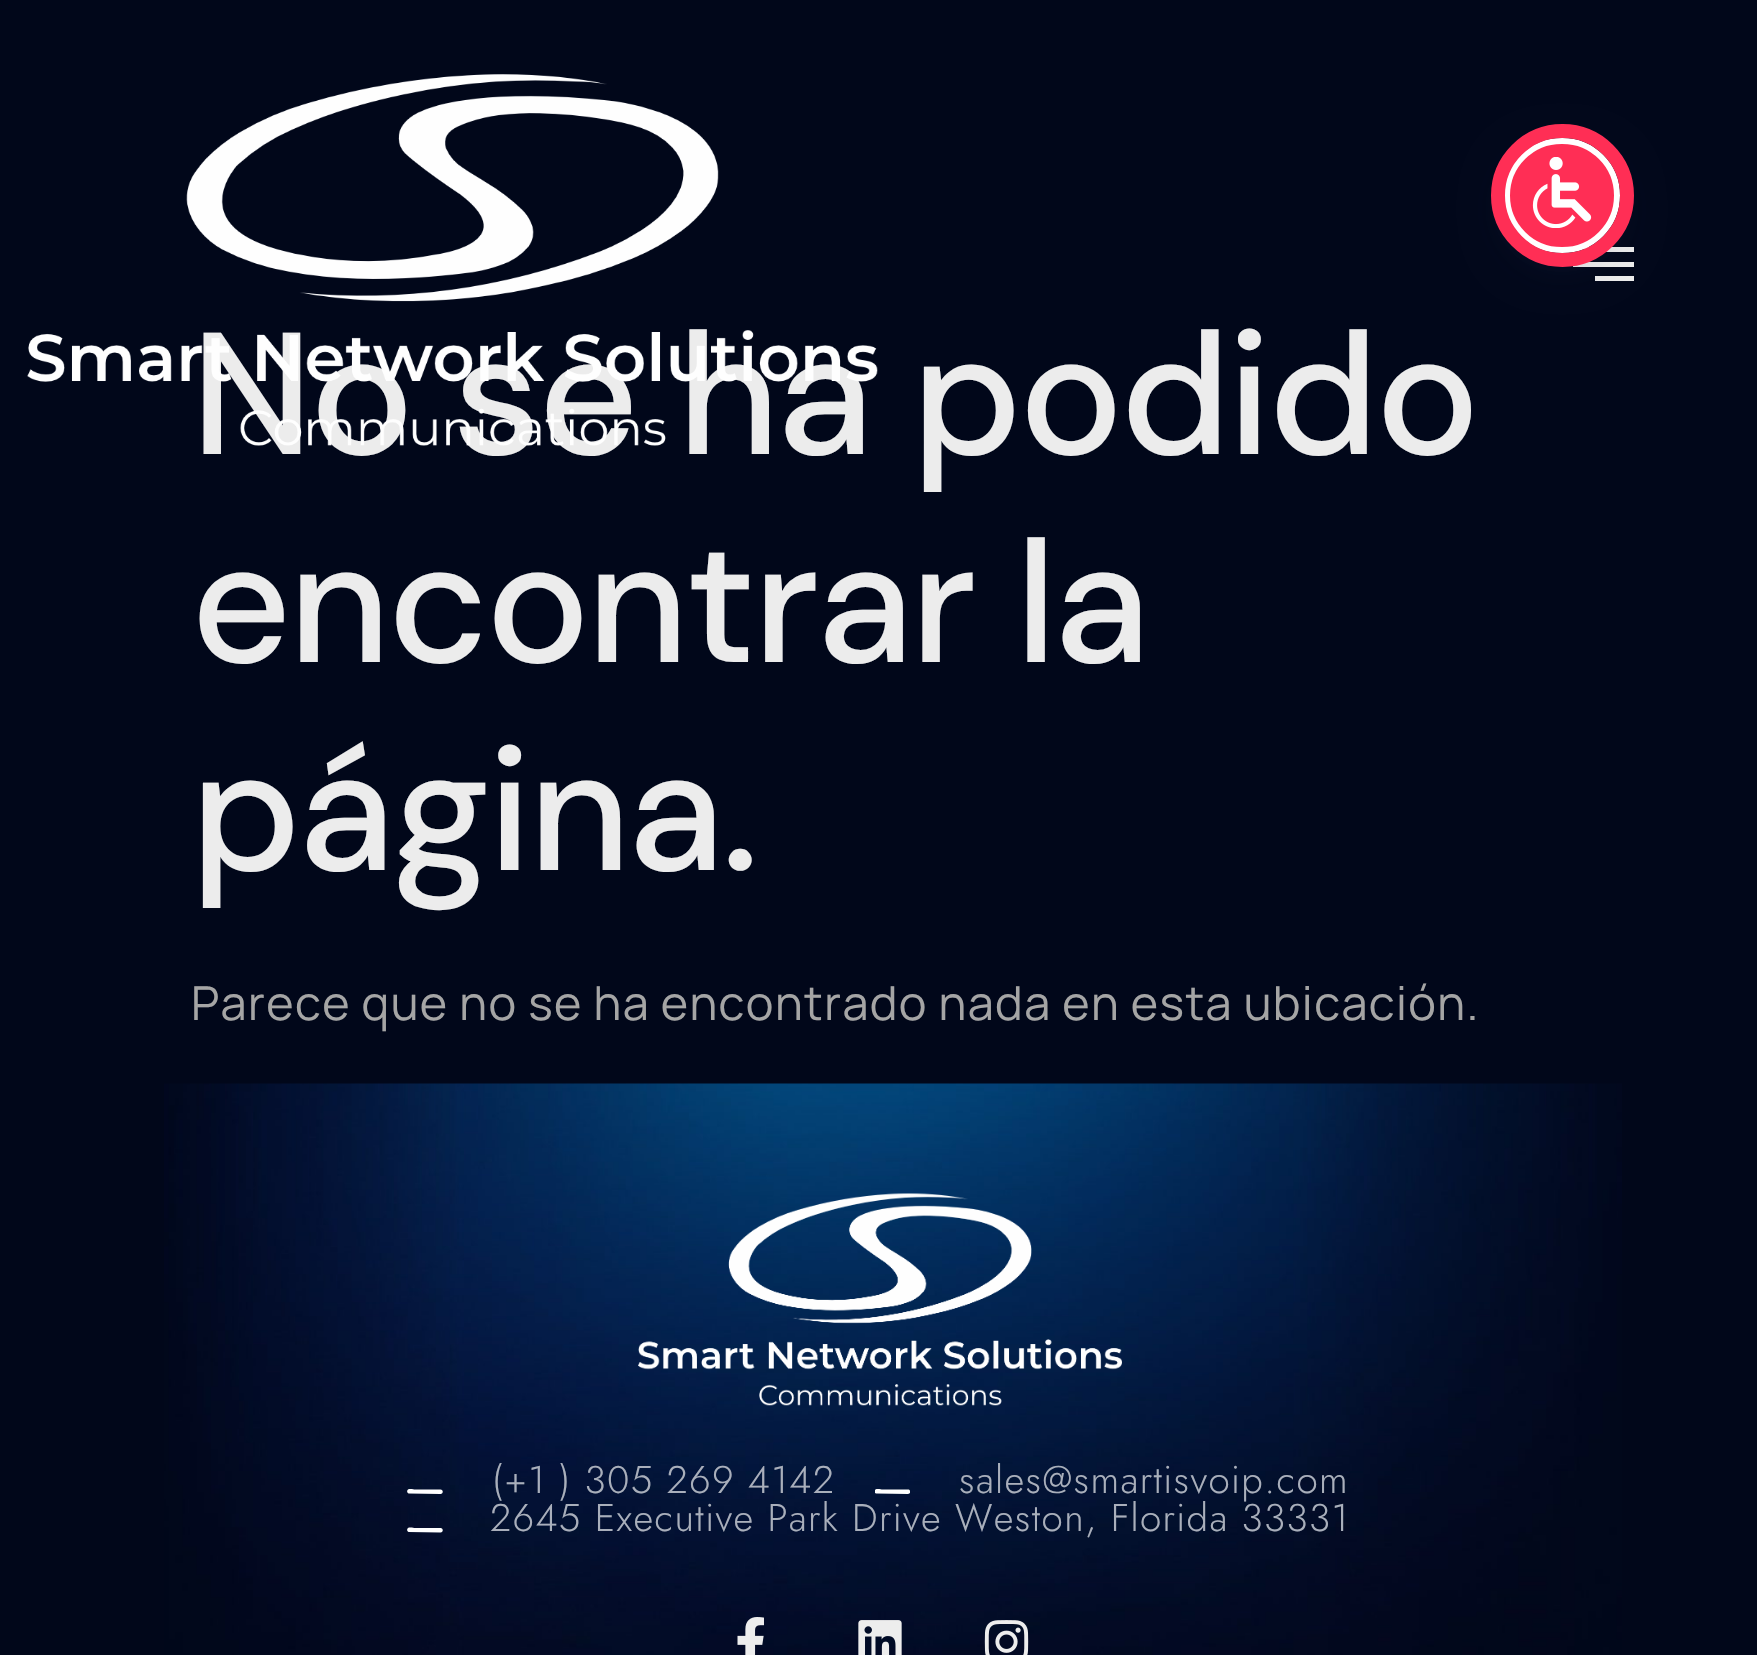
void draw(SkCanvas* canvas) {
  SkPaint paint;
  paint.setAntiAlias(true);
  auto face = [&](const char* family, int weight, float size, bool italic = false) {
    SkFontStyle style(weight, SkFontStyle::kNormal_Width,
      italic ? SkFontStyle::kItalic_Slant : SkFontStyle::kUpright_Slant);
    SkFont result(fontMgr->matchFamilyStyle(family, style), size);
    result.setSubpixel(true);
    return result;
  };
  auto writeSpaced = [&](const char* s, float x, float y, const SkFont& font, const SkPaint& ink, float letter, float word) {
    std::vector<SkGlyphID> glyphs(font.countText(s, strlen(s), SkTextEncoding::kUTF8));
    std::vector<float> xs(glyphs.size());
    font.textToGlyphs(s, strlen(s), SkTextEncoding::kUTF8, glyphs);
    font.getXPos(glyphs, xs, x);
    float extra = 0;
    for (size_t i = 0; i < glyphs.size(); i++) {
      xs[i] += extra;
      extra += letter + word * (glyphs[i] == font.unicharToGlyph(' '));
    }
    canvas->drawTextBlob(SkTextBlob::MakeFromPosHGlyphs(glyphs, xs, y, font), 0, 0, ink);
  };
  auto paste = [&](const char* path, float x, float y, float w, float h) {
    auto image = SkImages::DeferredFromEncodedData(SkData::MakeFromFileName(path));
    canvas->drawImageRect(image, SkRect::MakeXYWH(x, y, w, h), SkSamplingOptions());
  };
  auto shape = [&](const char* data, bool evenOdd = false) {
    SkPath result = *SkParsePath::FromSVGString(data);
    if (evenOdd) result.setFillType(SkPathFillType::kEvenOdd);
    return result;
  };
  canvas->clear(0xff01071a);
  paint.setColor(0xffececec);
  canvas->drawPath(shape("M1573 267H1634V262H1573ZM1595 281H1634V276H1595ZM1585 247V252H1634V247Z"), paint);
  paint.setColor(0x335d6494);
  paint.setMaskFilter(SkMaskFilter::MakeBlur(kNormal_SkBlurStyle, 5.5f));
  canvas->drawRoundRect(SkRect::MakeXYWH(1504, 143, 116, 116), 58, 58, paint);
  paint.setMaskFilter(nullptr);
  paint.setColor(0x26252c61);
  paint.setMaskFilter(SkMaskFilter::MakeBlur(kNormal_SkBlurStyle, 20.5f));
  canvas->drawRoundRect(SkRect::MakeXYWH(1504, 151, 116, 116), 58, 58, paint);
  paint.setMaskFilter(nullptr);
  paint.setColor(0xffff2e55);
  canvas->drawRoundRect(SkRect::MakeXYWH(1507, 141, 110, 109), 54.5f, 54.5f, paint);
  paint.setStroke(true);
  paint.setStrokeWidth(6);
  paint.setColor(0xffffffff);
  canvas->drawRoundRect(SkRect::MakeXYWH(1507, 141, 110, 109), 54.5f, 54.5f, paint);
  paint.setStrokeWidth(14);
  paint.setColor(0xffff2e55);
  canvas->drawCircle(1562.5f, 195.5f, 64.5f, paint);
  paste("img/1.png", 1532, 157, 60, 71);
  paste("img/3.png", 164, 1083, 1458, 572);
  paste("img/4.png", 638, 1193, 484, 213);
  paint.setStroke(false);
  paint.setColor(0xffffffff);
  canvas->drawPath(shape("M440.5 1494L408.5 1493.5C407 1493 406.5 1490.5 408 1489.5C409.5 1488.5 414.5 1489.5 414.5 1489.5H440.5C443.5 1489.5 443.5 1494 440.5 1494Z"), paint);
  canvas->save();
  canvas->clipRect(SkRect::MakeXYWH(875, 1460, 35, 36));
  canvas->drawPath(shape("M908 1494L876 1493.5C874.5 1493 874 1490.5 875.5 1489.5C877 1488.5 882 1489.5 882 1489.5H908C911 1489.5 911 1494 908 1494Z"), paint);
  canvas->restore();
  canvas->drawPath(shape("M440.5 1532.5L408.5 1532C407 1531.5 406.5 1529 408 1528C409.5 1527 414.5 1528 414.5 1528H440.5C443.5 1528 443.5 1532.5 440.5 1532.5Z"), paint);
  paste("img/5.png", 737, 1617, 27, 38);
  paste("img/6.png", 858, 1620, 44, 35);
  paste("img/7.png", 984, 1620, 45, 35);
  auto f0 = face("DM Sans", 500, 173.25f);
  paint.setColor(0xffececec);
  writeSpaced("No se ha podido", 191, 454, f0, paint, -2.75f, 0);
  paste("img/2.png", 27, 74, 851, 372);
  writeSpaced("encontrar la", 191, 662, f0, paint, -2.75f, 0);
  writeSpaced("página.", 191, 870, f0, paint, -2.75f, 0);
  auto f1 = face("Manrope", 400, 46.75f);
  paint.setColor(0xffa5a5a5);
  writeSpaced("Parece que no se ha encontrado nada en esta ubicación.", 191, 1020, f1, paint, 1.38f, 0);
  auto f2 = face("Jost", 300, 38.5f);
  paint.setColor(0xffa9afbb);
  {
    const struct { const char* s; float x, y; } items[] = {
      {"(+1 ) 305 269 4142", 492, 1493},
      {"sales@smartisvoip.com", 959, 1493},
      {"2645 Executive Park Drive Weston, Florida 33331", 490, 1531},
    };
    for (auto [s, x, y] : items) {
      writeSpaced(s, x, y, f2, paint, 1.38f, 0);
    }
  }
}
